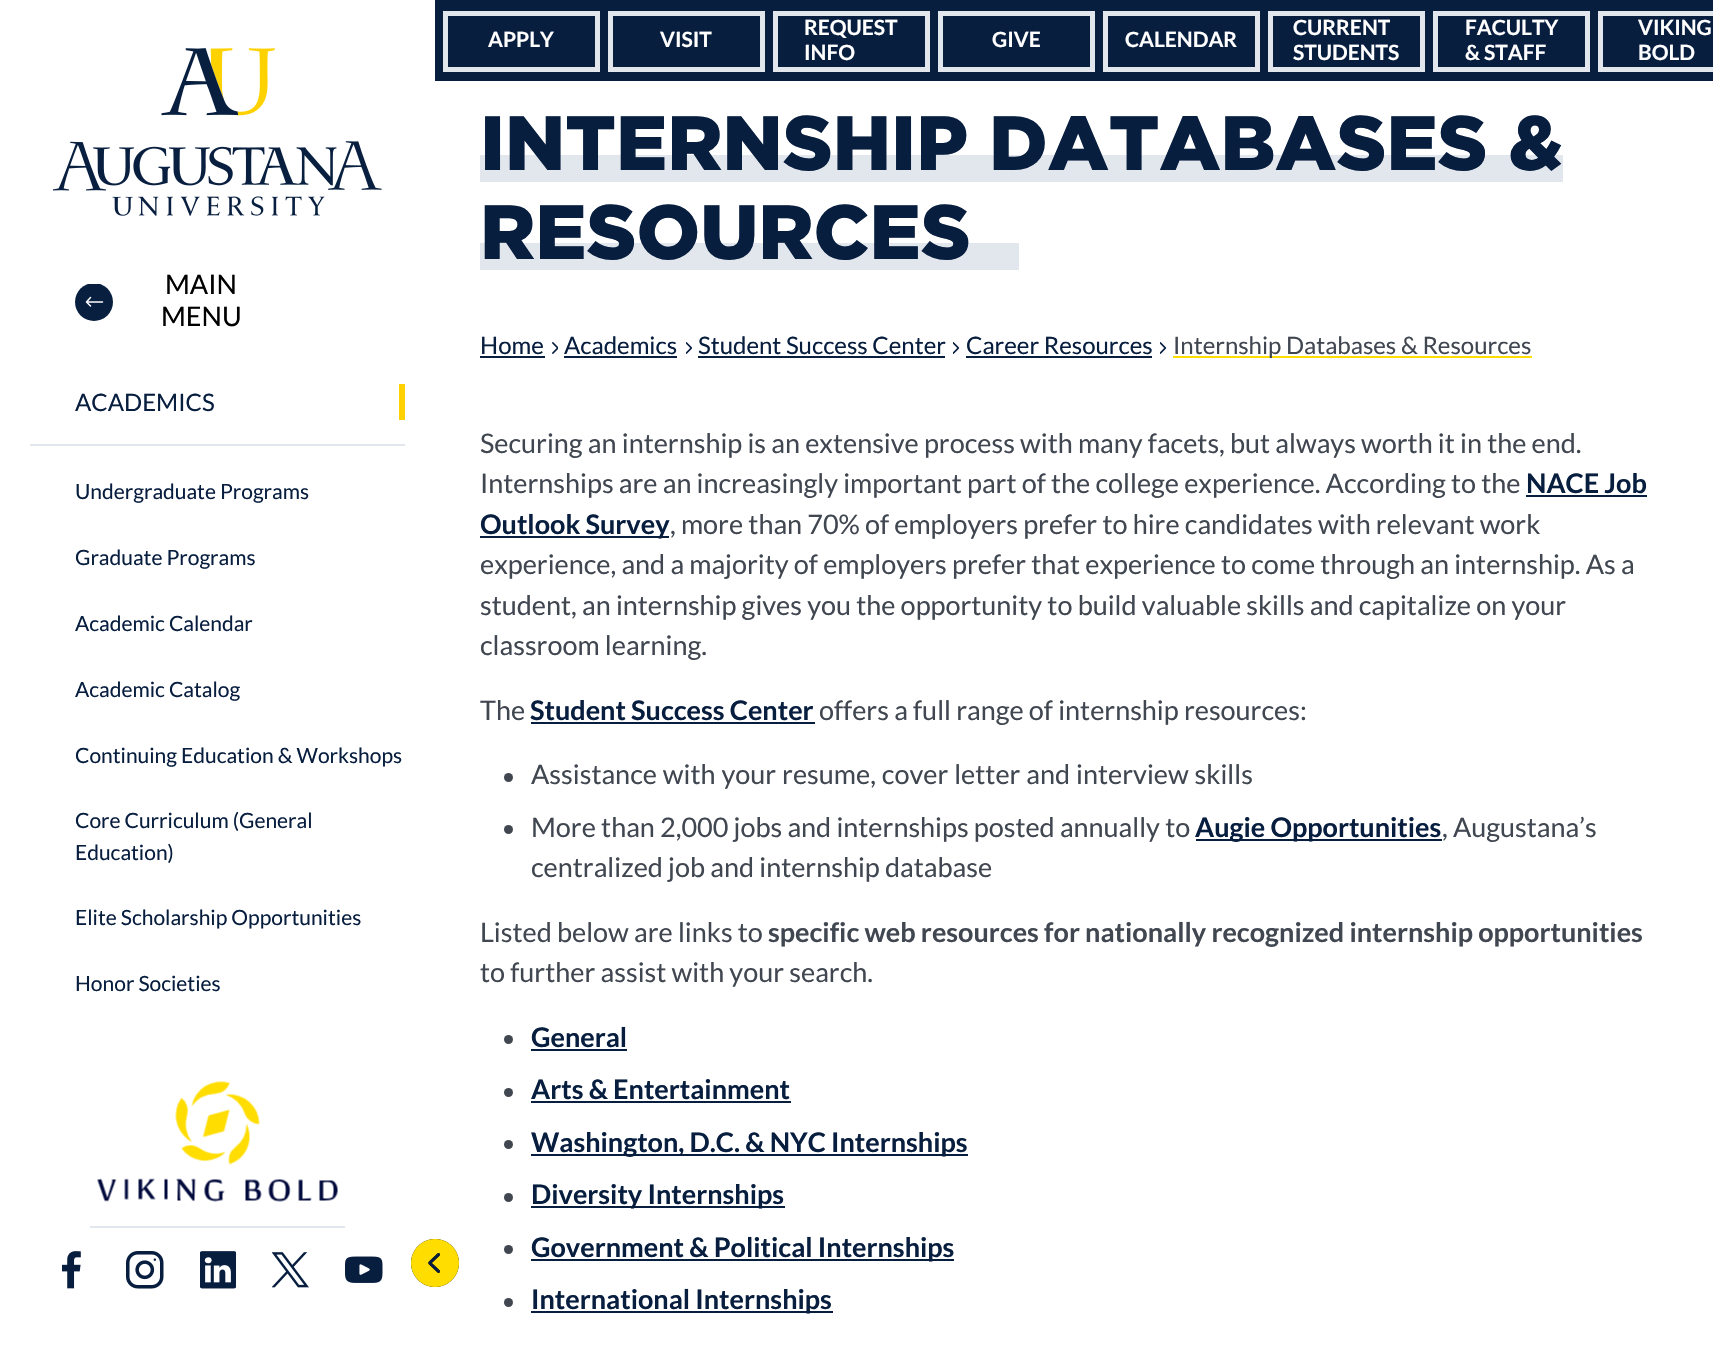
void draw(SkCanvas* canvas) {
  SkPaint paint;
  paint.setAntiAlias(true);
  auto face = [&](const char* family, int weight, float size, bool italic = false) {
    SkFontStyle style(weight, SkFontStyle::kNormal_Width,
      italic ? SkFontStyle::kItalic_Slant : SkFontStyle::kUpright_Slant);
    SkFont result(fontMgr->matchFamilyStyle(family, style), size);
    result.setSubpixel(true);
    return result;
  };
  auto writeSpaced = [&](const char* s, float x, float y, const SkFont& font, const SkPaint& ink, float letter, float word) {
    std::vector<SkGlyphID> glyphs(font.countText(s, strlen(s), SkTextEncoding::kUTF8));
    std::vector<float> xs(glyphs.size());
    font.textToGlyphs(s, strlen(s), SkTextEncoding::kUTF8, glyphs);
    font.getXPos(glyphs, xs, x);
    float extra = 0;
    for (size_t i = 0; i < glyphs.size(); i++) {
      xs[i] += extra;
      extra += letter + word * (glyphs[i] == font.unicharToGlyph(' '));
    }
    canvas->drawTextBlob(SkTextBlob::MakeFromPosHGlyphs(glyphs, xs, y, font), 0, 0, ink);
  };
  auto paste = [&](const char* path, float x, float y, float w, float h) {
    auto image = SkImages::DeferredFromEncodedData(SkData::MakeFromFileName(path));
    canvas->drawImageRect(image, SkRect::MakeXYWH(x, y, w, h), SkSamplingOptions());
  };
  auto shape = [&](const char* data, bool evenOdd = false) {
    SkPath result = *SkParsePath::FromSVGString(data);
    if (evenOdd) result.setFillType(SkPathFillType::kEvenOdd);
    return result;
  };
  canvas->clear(0xffffffff);
  paste("img/1.png", 53, 48, 329, 168);
  canvas->save();
  canvas->clipRect(SkRect::MakeXYWH(75, 284, 38, 37));
  paint.setColor(0xff081f40);
  canvas->drawCircle(94, 302, 19, paint);
  canvas->restore();
  paint.setStroke(true);
  paint.setStrokeWidth(1.5f);
  paint.setStrokeCap(SkPaint::kRound_Cap);
  paint.setStrokeJoin(SkPaint::kRound_Join);
  paint.setColor(0xffffffff);
  canvas->drawPath(shape("M102.5 302H87M90.5 306L86.5 302L90.5 297.5"), paint);
  paint.setStroke(false);
  paint.setColor(0xfffed102);
  canvas->drawRect(SkRect::MakeXYWH(399, 384, 6, 36), paint);
  paint.setColor(0xffe2e7ee);
  canvas->drawRect(SkRect::MakeXYWH(30, 444, 375, 2), paint);
  paste("img/2.png", 97, 1081, 241, 121);
  canvas->drawRect(SkRect::MakeXYWH(90, 1226, 255, 2), paint);
  paste("img/3.png", 62, 1251, 19, 38);
  paste("img/4.png", 126, 1251, 38, 38);
  paste("img/5.png", 200, 1251, 36, 38);
  paste("img/6.png", 272, 1252, 37, 36);
  paste("img/7.png", 345, 1256, 38, 27);
  paste("img/8.png", 411, 1239, 48, 48);
  paint.setColor(0xff081e3f);
  canvas->drawRect(SkRect::MakeXYWH(435, 0, 1278, 81), paint);
  paint.setStroke(true);
  paint.setStrokeWidth(5);
  paint.setStrokeCap(SkPaint::kButt_Cap);
  paint.setStrokeJoin(SkPaint::kMiter_Join);
  paint.setColor(0xffe2e7ee);
  canvas->drawRect(SkRect::MakeXYWH(445.5f, 13.5f, 152, 56), paint);
  canvas->drawRect(SkRect::MakeXYWH(610.5f, 13.5f, 152, 56), paint);
  canvas->drawRect(SkRect::MakeXYWH(775.5f, 13.5f, 152, 56), paint);
  canvas->drawRect(SkRect::MakeXYWH(940.5f, 13.5f, 152, 56), paint);
  canvas->drawRect(SkRect::MakeXYWH(1105.5f, 13.5f, 152, 56), paint);
  canvas->drawRect(SkRect::MakeXYWH(1270.5f, 13.5f, 152, 56), paint);
  canvas->drawRect(SkRect::MakeXYWH(1435.5f, 13.5f, 152, 56), paint);
  canvas->drawRect(SkRect::MakeXYWH(1600.5f, 13.5f, 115, 56), paint);
  paint.setStroke(false);
  {
    const struct { float x, y, w, h; SkColor color; } items[] = {
      {480, 155, 1083, 27, 0xffe2e7ee},
      {480, 243, 539, 27, 0xffe2e7ee},
      {480, 356, 65, 2, 0xff081e3f},
    };
    for (auto [x, y, w, h, color] : items) {
      paint.setColor(color);
      canvas->drawRect(SkRect::MakeXYWH(x, y, w, h), paint);
    }
  }
  paste("img/9.png", 552, 342, 6, 12);
  canvas->drawRect(SkRect::MakeXYWH(564, 356, 113, 2), paint);
  paste("img/10.png", 686, 342, 6, 12);
  canvas->drawRect(SkRect::MakeXYWH(698, 356, 247, 2), paint);
  paste("img/11.png", 953, 342, 7, 12);
  canvas->drawRect(SkRect::MakeXYWH(966, 356, 186, 2), paint);
  paste("img/11.png", 1160, 342, 7, 12);
  {
    const struct { float x, y, w, h; SkColor color; } items[] = {
      {1173, 356, 359, 2, 0xffffdd00},
      {1526, 495, 121, 2, 0xff081e3f},
      {480, 536, 189, 2, 0xff081e3f},
      {531, 722, 284, 2, 0xff081e3f},
    };
    for (auto [x, y, w, h, color] : items) {
      paint.setColor(color);
      canvas->drawRect(SkRect::MakeXYWH(x, y, w, h), paint);
    }
  }
  paint.setColor(0xff414751);
  canvas->drawCircle(508.5f, 777.5f, 4.5f, paint);
  canvas->drawCircle(508.5f, 829.5f, 4.5f, paint);
  paint.setColor(0xff081e3f);
  canvas->drawRect(SkRect::MakeXYWH(1196, 839, 246, 2), paint);
  paint.setColor(0xff414751);
  canvas->drawCircle(508.5f, 1039.5f, 4.5f, paint);
  paint.setColor(0xff081e3f);
  canvas->drawRect(SkRect::MakeXYWH(531, 1049, 96, 2), paint);
  paint.setColor(0xff414751);
  canvas->drawCircle(508.5f, 1092.5f, 4.5f, paint);
  paint.setColor(0xff081e3f);
  canvas->drawRect(SkRect::MakeXYWH(531, 1101, 260, 2), paint);
  paint.setColor(0xff414751);
  canvas->drawCircle(508.5f, 1144.5f, 4.5f, paint);
  paint.setColor(0xff081e3f);
  canvas->drawRect(SkRect::MakeXYWH(531, 1154, 437, 2), paint);
  paint.setColor(0xff414751);
  canvas->drawCircle(508.5f, 1197.5f, 4.5f, paint);
  paint.setColor(0xff081e3f);
  canvas->drawRect(SkRect::MakeXYWH(531, 1206, 254, 2), paint);
  paint.setColor(0xff414751);
  canvas->drawCircle(508.5f, 1249.5f, 4.5f, paint);
  paint.setColor(0xff081e3f);
  canvas->drawRect(SkRect::MakeXYWH(531, 1259, 423, 2), paint);
  paint.setColor(0xff414751);
  canvas->drawCircle(508.5f, 1302.5f, 4.5f, paint);
  paint.setColor(0xff081e3f);
  canvas->drawRect(SkRect::MakeXYWH(531, 1311, 302, 2), paint);
  auto f0 = face("Lato", 400, 27);
  paint.setColor(0xff000000);
  canvas->drawString("MAIN", 165, 294, f0, paint);
  canvas->drawString("MENU", 161, 326, f0, paint);
  auto f1 = face("Lato", 400, 24);
  paint.setColor(0xff081e3f);
  canvas->drawString("ACADEMICS", 75, 411, f1, paint);
  auto f2 = face("Lato", 400, 21);
  {
    const struct { const char* s; float x, y; } items[] = {
      {"Undergraduate Programs", 75, 499},
      {"Graduate Programs", 75, 565},
      {"Academic Calendar", 75, 631},
      {"Academic Catalog", 75, 697},
      {"Continuing Education & Workshops", 75, 763},
      {"Core Curriculum (General", 75, 828},
      {"Education)", 75, 860},
      {"Elite Scholarship Opportunities", 75, 925},
      {"Honor Societies", 75, 991},
    };
    for (auto [s, x, y] : items) {
      canvas->drawString(s, x, y, f2, paint);
    }
  }
  auto f3 = face("Lato", 700, 21);
  paint.setColor(0xffffffff);
  {
    const struct { const char* s; float x, y; } items[] = {
      {"APPLY", 488, 47},
      {"VISIT", 660, 47},
      {"REQUEST", 804, 35},
      {"INFO", 804, 60},
      {"GIVE", 992, 47},
      {"CALENDAR", 1125, 47},
      {"CURRENT", 1293, 35},
      {"STUDENTS", 1293, 60},
      {"FACULTY", 1465, 35},
      {"& STAFF", 1465, 60},
      {"VIKING", 1638, 35},
      {"BOLD", 1638, 60},
    };
    for (auto [s, x, y] : items) {
      canvas->drawString(s, x, y, f3, paint);
    }
  }
  auto f4 = face("Gotham", 900, 76.75f);
  paint.setColor(0xff081e3f);
  canvas->drawString("INTERNSHIP DATABASES &", 480, 170, f4, paint);
  canvas->drawString("RESOURCES", 480, 259, f4, paint);
  {
    const struct { const char* s; float x, y; } items[] = {
      {"Home", 480, 354},
      {"Academics", 564, 354},
      {"Student Success Center", 698, 354},
      {"Career Resources", 966, 354},
    };
    for (auto [s, x, y] : items) {
      canvas->drawString(s, x, y, f1, paint);
    }
  }
  paint.setColor(0xff414751);
  canvas->drawString("Internship Databases & Resources", 1173, 354, f1, paint);
  canvas->drawString("Securing an internship is an extensive process with many facets, but always worth it in the end.", 480, 453, f0, paint);
  canvas->drawString("Internships are an increasingly important part of the college experience. According to the", 480, 493, f0, paint);
  auto f5 = face("Lato", 700, 27);
  paint.setColor(0xff081e3f);
  canvas->drawString("NACE Job", 1526, 493, f5, paint);
  canvas->drawString("Outlook Survey", 480, 534, f5, paint);
  paint.setColor(0xff414751);
  {
    const struct { const char* s; float x, y; } items[] = {
      {", more than 70% of employers prefer to hire candidates with relevant work", 670, 534},
      {"experience, and a majority of employers prefer that experience to come through an internship. As a", 480, 574},
      {"student, an internship gives you the opportunity to build valuable skills and capitalize on your", 480, 615},
      {"classroom learning.", 480, 655},
      {"The", 480, 720},
    };
    for (auto [s, x, y] : items) {
      canvas->drawString(s, x, y, f0, paint);
    }
  }
  paint.setColor(0xff081e3f);
  canvas->drawString("Student Success Center", 530, 720, f5, paint);
  paint.setColor(0xff414751);
  canvas->drawString("offers a full range of internship resources:", 819, 720, f0, paint);
  writeSpaced("Assistance with your resume, cover letter and interview skills", 531, 784, f0, paint, 0, 0.75f);
  canvas->drawString("More than 2,000 jobs and internships posted annually to", 531, 837, f0, paint);
  paint.setColor(0xff081e3f);
  canvas->drawString("Augie Opportunities", 1195, 837, f5, paint);
  paint.setColor(0xff414751);
  {
    const struct { const char* s; float x, y; } items[] = {
      {", Augustana’s", 1442, 837},
      {"centralized job and internship database", 531, 877},
      {"Listed below are links to", 480, 942},
    };
    for (auto [s, x, y] : items) {
      canvas->drawString(s, x, y, f0, paint);
    }
  }
  canvas->drawString("specific web resources for nationally recognized internship opportunities", 768, 942, f5, paint);
  canvas->drawString("to further assist with your search.", 480, 982, f0, paint);
  paint.setColor(0xff081e3f);
  {
    const struct { const char* s; float x, y; } items[] = {
      {"General", 531, 1047},
      {"Arts & Entertainment", 531, 1099},
      {"Washington, D.C. & NYC Internships", 531, 1152},
      {"Diversity Internships", 531, 1204},
      {"Government & Political Internships", 531, 1257},
      {"International Internships", 531, 1309},
    };
    for (auto [s, x, y] : items) {
      canvas->drawString(s, x, y, f5, paint);
    }
  }
}
